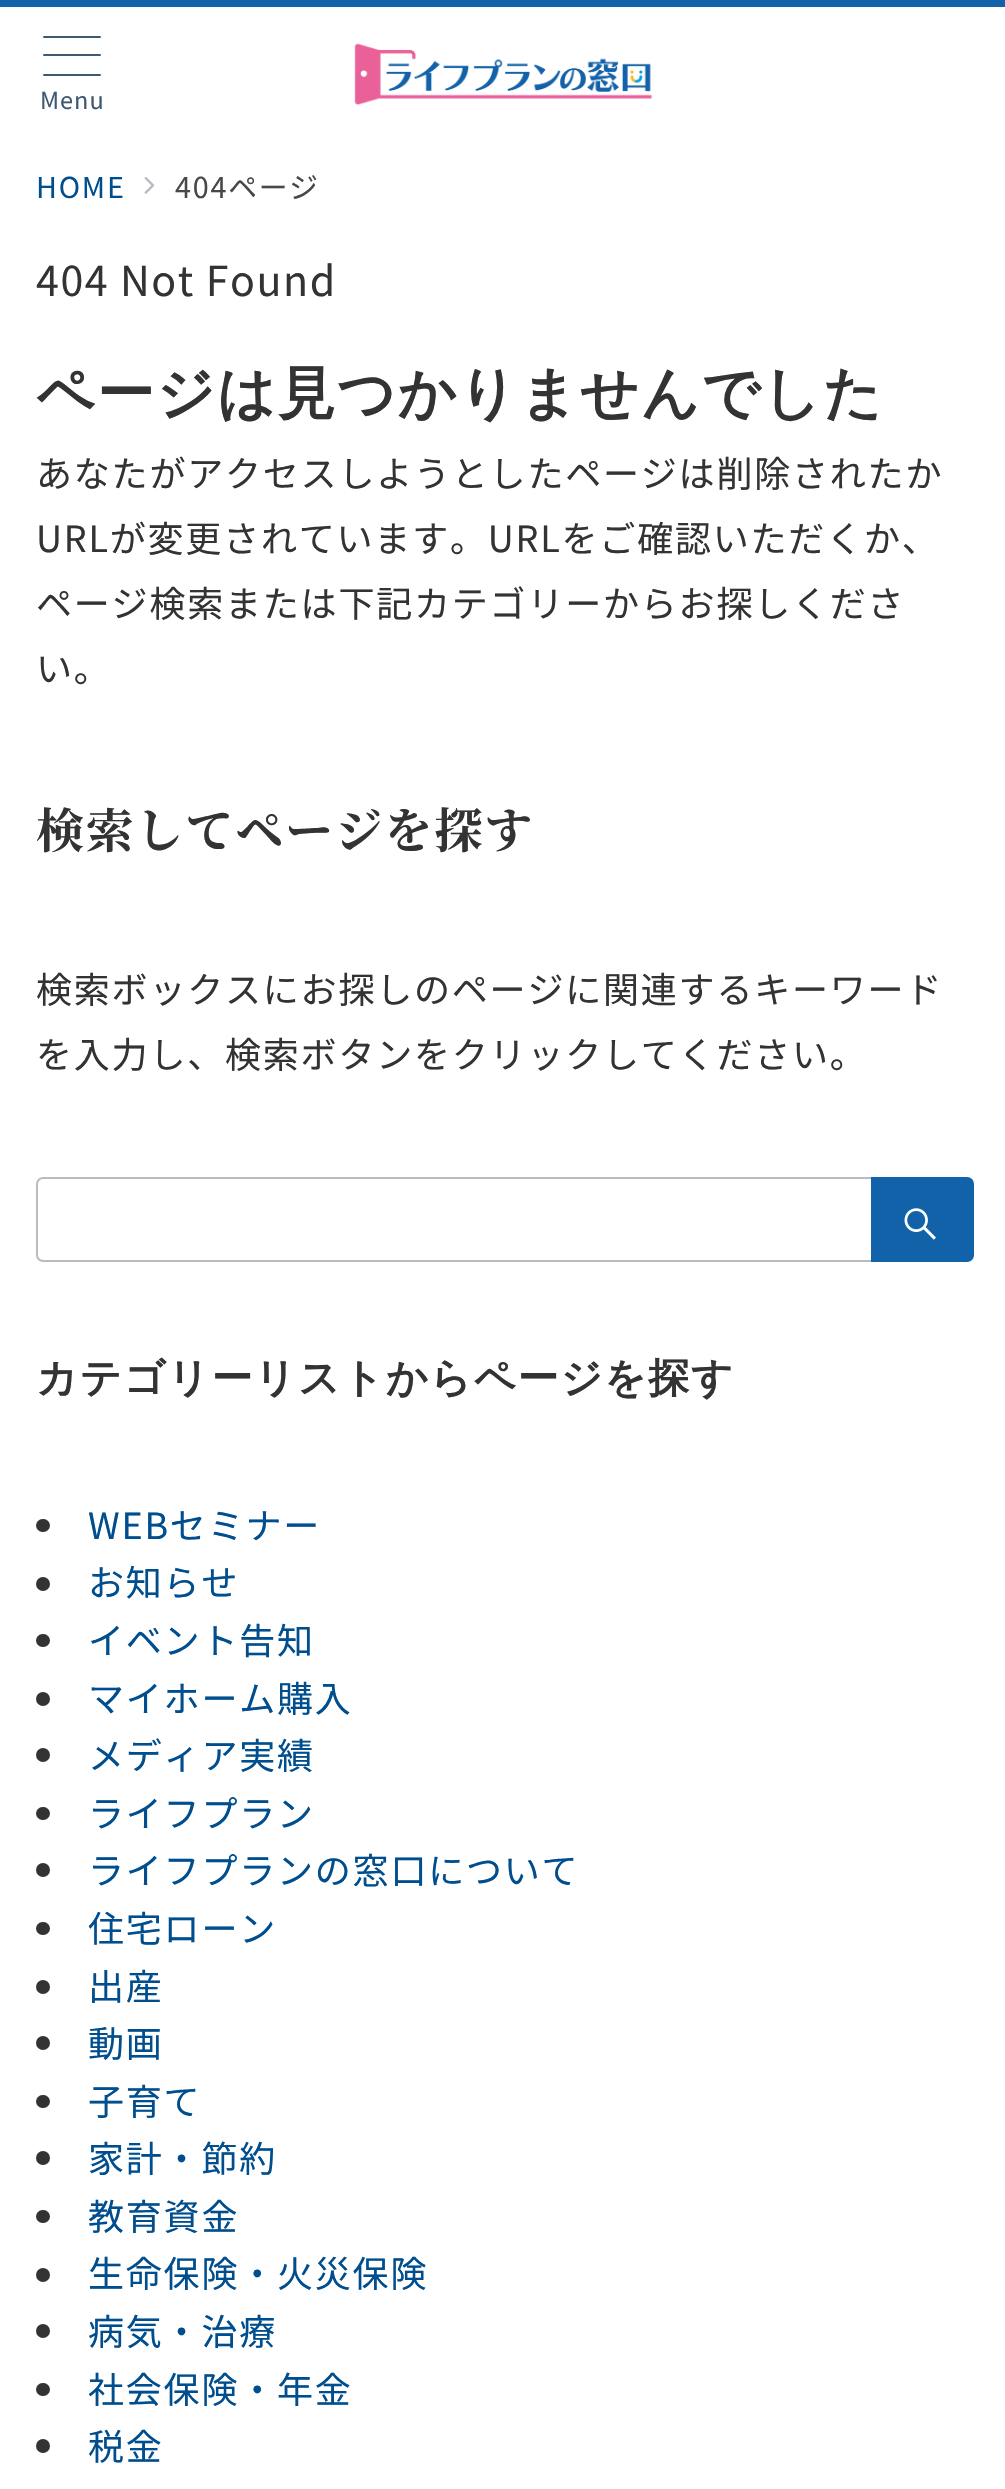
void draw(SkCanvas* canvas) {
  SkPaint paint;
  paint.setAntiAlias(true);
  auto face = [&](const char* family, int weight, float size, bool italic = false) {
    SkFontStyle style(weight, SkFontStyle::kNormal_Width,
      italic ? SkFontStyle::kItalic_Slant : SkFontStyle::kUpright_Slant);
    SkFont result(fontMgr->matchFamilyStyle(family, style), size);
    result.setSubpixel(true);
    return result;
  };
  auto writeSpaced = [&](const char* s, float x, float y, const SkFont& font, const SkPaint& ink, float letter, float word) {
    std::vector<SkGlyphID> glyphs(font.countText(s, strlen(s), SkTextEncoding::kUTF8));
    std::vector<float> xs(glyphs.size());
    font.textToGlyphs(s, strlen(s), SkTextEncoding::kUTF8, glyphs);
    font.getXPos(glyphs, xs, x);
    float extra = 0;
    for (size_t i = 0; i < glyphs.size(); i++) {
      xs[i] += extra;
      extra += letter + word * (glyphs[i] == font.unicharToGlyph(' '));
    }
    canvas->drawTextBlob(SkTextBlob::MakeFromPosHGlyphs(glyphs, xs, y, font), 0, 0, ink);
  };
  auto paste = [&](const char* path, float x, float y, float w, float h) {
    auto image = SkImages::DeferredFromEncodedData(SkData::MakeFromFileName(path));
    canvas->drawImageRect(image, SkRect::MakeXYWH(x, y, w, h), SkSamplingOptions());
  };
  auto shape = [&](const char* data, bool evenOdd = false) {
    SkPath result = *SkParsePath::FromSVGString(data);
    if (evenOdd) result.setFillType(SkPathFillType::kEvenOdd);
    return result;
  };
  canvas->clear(0xffffffff);
  paint.setColor(0xff1262a9);
  canvas->drawRect(SkRect::MakeXYWH(0, 0, 1005, 7), paint);
  paint.setColor(0xff3f5973);
  canvas->drawRoundRect(SkRect::MakeXYWH(43, 36, 58, 2), 1, 1, paint);
  canvas->drawRoundRect(SkRect::MakeXYWH(43, 54, 58, 2), 1, 1, paint);
  canvas->drawRoundRect(SkRect::MakeXYWH(43, 74, 58, 2), 1, 1, paint);
  paste("img/1.png", 354, 43, 299, 63);
  paste("img/2.png", 144, 177, 11, 17);
  paint.setStroke(true);
  paint.setStrokeWidth(2);
  paint.setColor(0xffb8bcc0);
  canvas->drawRoundRect(SkRect::MakeXYWH(37, 1178, 932, 83), 6, 6, paint);
  paint.setStroke(false);
  paint.setColor(0xff1262a9);
  canvas->drawPath(shape("M872 1178H967C970.5 1178 973 1180.5 973 1184V1255C973 1258.5 970.5 1261 967 1261H872Z"), paint);
  paint.setStroke(true);
  canvas->drawPath(shape("M872 1178H967C970.5 1178 973 1180.5 973 1184V1255C973 1258.5 970.5 1261 967 1261H872Z"), paint);
  paste("img/3.png", 904, 1208, 32, 32);
  paint.setStroke(false);
  paint.setColor(0xff333333);
  canvas->drawRoundRect(SkRect::MakeXYWH(36, 1519, 14, 13), 6.5f, 6.5f, paint);
  canvas->drawCircle(43, 1584, 7, paint);
  canvas->drawRoundRect(SkRect::MakeXYWH(36, 1634, 14, 13), 6.5f, 6.5f, paint);
  canvas->drawCircle(43, 1699, 7, paint);
  canvas->drawCircle(43, 1755, 7, paint);
  canvas->drawRoundRect(SkRect::MakeXYWH(36, 1807, 14, 13), 6.5f, 6.5f, paint);
  canvas->drawCircle(43, 1870, 7, paint);
  canvas->drawRoundRect(SkRect::MakeXYWH(36, 1922, 14, 13), 6.5f, 6.5f, paint);
  canvas->drawCircle(43, 1987, 7, paint);
  canvas->drawCircle(43, 2043, 7, paint);
  canvas->drawRoundRect(SkRect::MakeXYWH(36, 2095, 14, 13), 6.5f, 6.5f, paint);
  canvas->drawCircle(43, 2158, 7, paint);
  canvas->drawRoundRect(SkRect::MakeXYWH(36, 2210, 14, 13), 6.5f, 6.5f, paint);
  canvas->drawCircle(43, 2275, 7, paint);
  canvas->drawCircle(43, 2331, 7, paint);
  canvas->drawRoundRect(SkRect::MakeXYWH(36, 2383, 14, 13), 6.5f, 6.5f, paint);
  canvas->drawCircle(43, 2446, 7, paint);
  auto f0 = face("Noto Sans JP", 400, 23.5f);
  paint.setColor(0xff3f5973);
  writeSpaced("Menu", 40, 109, f0, paint, 1, 0);
  auto f1 = face("Noto Sans JP", 400, 28.75f);
  paint.setColor(0xff004e8e);
  writeSpaced("HOME", 36, 198, f1, paint, 1.8f, 0);
  paint.setColor(0xff484848);
  writeSpaced("404ページ", 175, 198, f1, paint, 1.8f, 0);
  auto f2 = face("Noto Sans JP", 400, 41.1f);
  paint.setColor(0xff333333);
  writeSpaced("404 Not Found", 36, 296, f2, paint, 1.6f, 0);
  auto f3 = face("WenQuanYi Zen Hei", 700, 57.6f);
  writeSpaced("ページは見つかりませんでした", 36, 413, f3, paint, 1.8f, 0);
  auto f4 = face("Noto Sans JP", 400, 36);
  {
    const struct { const char* s; float x, y; } items[] = {
      {"あなたがアクセスしようとしたページは削除されたか", 36, 487},
      {"URLが変更されています。URLをご確認いただくか、", 36, 552},
      {"ページ検索または下記カテゴリーからお探しくださ", 36, 617},
      {"い。", 36, 682},
    };
    for (auto [s, x, y] : items) {
      writeSpaced(s, x, y, f4, paint, 1.8f, 0);
    }
  }
  auto f5 = face("Noto Serif JP", 700, 48);
  writeSpaced("検索してページを探す", 36, 848, f5, paint, 1.8f, 0);
  writeSpaced("検索ボックスにお探しのページに関連するキーワード", 36, 1003, f4, paint, 1.8f, 0);
  writeSpaced("を入力し、検索ボタンをクリックしてください。", 36, 1068, f4, paint, 1.8f, 0);
  auto f6 = face("WenQuanYi Zen Hei", 700, 41.1f);
  writeSpaced("カテゴリーリストからページを探す", 36, 1392, f6, paint, 1.8f, 0);
  paint.setColor(0xff004e8e);
  {
    const struct { const char* s; float x, y; } items[] = {
      {"WEBセミナー", 88, 1539},
      {"お知らせ", 88, 1596},
      {"イベント告知", 88, 1654},
      {"マイホーム購入", 88, 1712},
      {"メディア実績", 88, 1769},
      {"ライフプラン", 88, 1827},
      {"ライフプランの窓口について", 88, 1884},
      {"住宅ローン", 88, 1942},
      {"出産", 88, 2000},
      {"動画", 88, 2057},
      {"子育て", 88, 2115},
      {"家計・節約", 88, 2172},
      {"教育資金", 88, 2230},
      {"生命保険・火災保険", 88, 2287},
      {"病気・治療", 88, 2345},
      {"社会保険・年金", 88, 2403},
      {"税金", 88, 2460},
    };
    for (auto [s, x, y] : items) {
      writeSpaced(s, x, y, f4, paint, 1.8f, 0);
    }
  }
}
